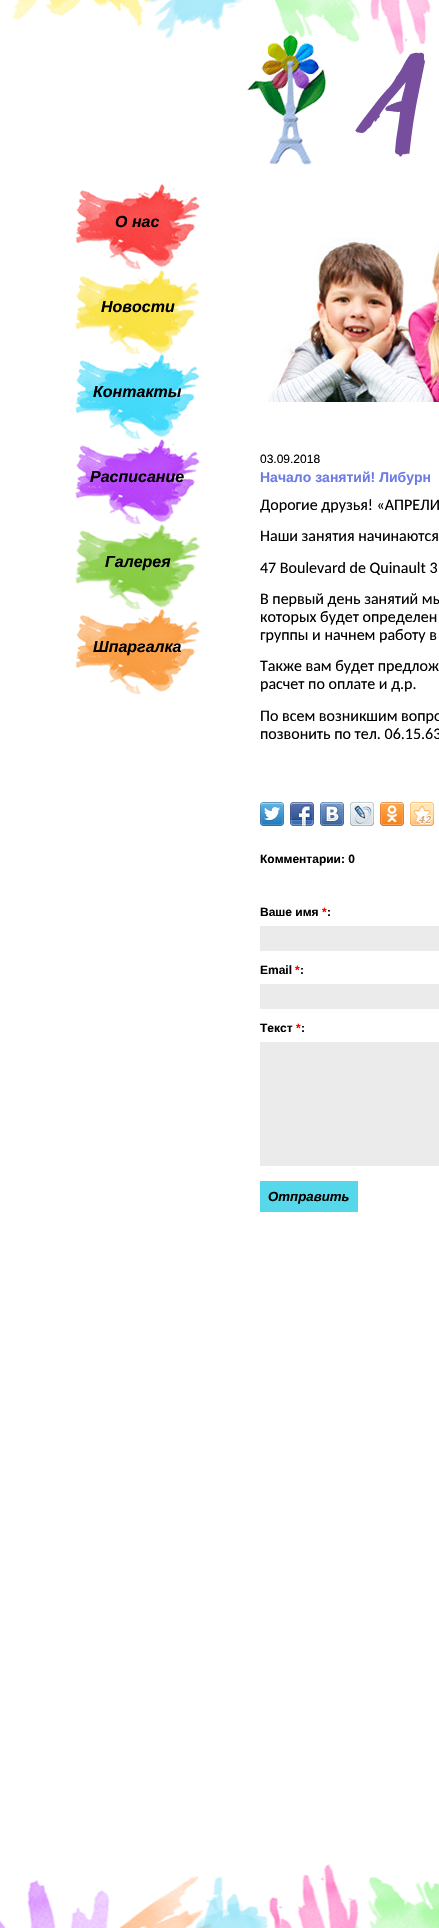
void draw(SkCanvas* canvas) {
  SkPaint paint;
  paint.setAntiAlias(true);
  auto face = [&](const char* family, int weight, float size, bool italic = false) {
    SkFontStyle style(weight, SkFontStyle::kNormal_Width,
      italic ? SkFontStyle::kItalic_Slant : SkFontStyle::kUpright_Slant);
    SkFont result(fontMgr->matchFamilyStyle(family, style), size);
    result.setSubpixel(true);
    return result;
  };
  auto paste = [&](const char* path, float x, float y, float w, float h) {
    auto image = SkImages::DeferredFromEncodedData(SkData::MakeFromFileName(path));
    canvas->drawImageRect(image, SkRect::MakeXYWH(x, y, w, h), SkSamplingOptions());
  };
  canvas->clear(0xffffffff);
  paste("img/1.png", 12, 0, 419, 56);
  paste("img/2.png", 75, 184, 125, 85);
  paste("img/3.png", 75, 269, 125, 85);
  paste("img/4.png", 75, 354, 125, 85);
  paste("img/5.png", 75, 439, 125, 85);
  paste("img/6.png", 75, 524, 125, 85);
  paste("img/7.png", 75, 609, 125, 85);
  paste("img/8.png", 247, 34, 178, 131);
  paste("img/9.png", 268, 237, 171, 165);
  paste("img/10.png", 260, 802, 24, 24);
  paste("img/11.png", 290, 802, 24, 24);
  paste("img/12.png", 320, 802, 24, 24);
  paste("img/13.png", 350, 802, 24, 24);
  paste("img/14.png", 380, 802, 24, 24);
  paste("img/15.png", 410, 802, 24, 24);
  {
    const struct { float x, y, w, h; SkColor color; } items[] = {
      {260, 926, 179, 25, 0xffebebeb},
      {260, 984, 179, 25, 0xffebebeb},
      {260, 1042, 179, 124, 0xffebebeb},
      {260, 1181, 98, 31, 0xff56d7ea},
    };
    for (auto [x, y, w, h, color] : items) {
      paint.setColor(color);
      canvas->drawRect(SkRect::MakeXYWH(x, y, w, h), paint);
    }
  }
  paste("img/16.png", 0, 1863, 439, 65);
  auto f0 = face("Liberation Sans", 700, 16, true);
  paint.setColor(0xff000000);
  {
    const struct { const char* s; float x, y; } items[] = {
      {"О нас", 115, 227},
      {"Новости", 101, 312},
      {"Контакты", 93, 397},
      {"Расписание", 90, 482},
      {"Галерея", 105, 567},
      {"Шпаргалка", 93, 652},
    };
    for (auto [s, x, y] : items) {
      canvas->drawString(s, x, y, f0, paint);
    }
  }
  auto f1 = face("Liberation Sans", 400, 12);
  canvas->drawString("03.09.2018", 260, 463, f1, paint);
  auto f2 = face("Liberation Sans", 700, 14);
  paint.setColor(0xff6c7ce6);
  canvas->drawString("Начало занятий! Либурн", 260, 482, f2, paint);
  auto f3 = face("Carlito", 400, 16);
  paint.setColor(0xff000000);
  {
    const struct { const char* s; float x, y; } items[] = {
      {"Дорогие друзья! «АПРЕЛИ", 260, 510},
      {"Наши занятия начинаются", 260, 541},
      {"47 Boulevard de Quinault 3", 260, 573},
      {"В первый день занятий мы", 260, 604},
      {"которых будет определен", 260, 622},
      {"группы и начнем работу в", 260, 640},
      {"Также вам будет предлож", 260, 671},
      {"расчет по оплате и д.р.", 260, 689},
      {"По всем возникшим вопро", 260, 721},
      {"позвонить по тел. 06.15.63", 260, 739},
    };
    for (auto [s, x, y] : items) {
      canvas->drawString(s, x, y, f3, paint);
    }
  }
  auto f4 = face("Liberation Sans", 700, 12);
  canvas->drawString("Комментарии: 0", 260, 863, f4, paint);
  canvas->drawString("Ваше имя", 260, 916, f4, paint);
  paint.setColor(0xffff0000);
  canvas->drawString("*", 322, 916, f4, paint);
  paint.setColor(0xff000000);
  canvas->drawString(":", 327, 916, f4, paint);
  canvas->drawString("Email", 260, 974, f4, paint);
  paint.setColor(0xffff0000);
  canvas->drawString("*", 295, 974, f4, paint);
  paint.setColor(0xff000000);
  canvas->drawString(":", 300, 974, f4, paint);
  canvas->drawString("Текст", 260, 1032, f4, paint);
  paint.setColor(0xffff0000);
  canvas->drawString("*", 296, 1032, f4, paint);
  paint.setColor(0xff000000);
  canvas->drawString(":", 301, 1032, f4, paint);
  auto f5 = face("Liberation Sans", 700, 13.25f, true);
  canvas->drawString("Отправить", 268, 1201, f5, paint);
}
